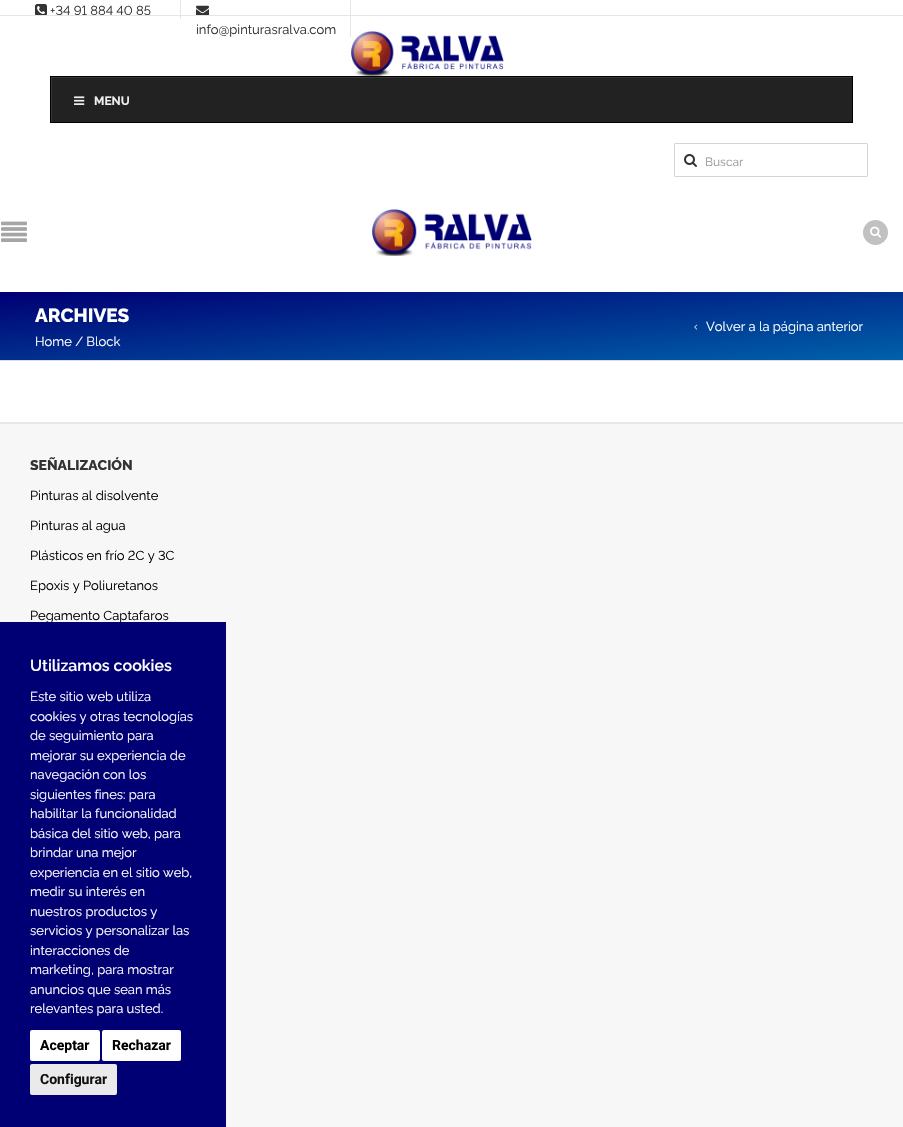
void draw(SkCanvas* canvas) {
  SkPaint paint;
  paint.setAntiAlias(true);
  auto face = [&](const char* family, int weight, float size, bool italic = false) {
    SkFontStyle style(weight, SkFontStyle::kNormal_Width,
      italic ? SkFontStyle::kItalic_Slant : SkFontStyle::kUpright_Slant);
    SkFont result(fontMgr->matchFamilyStyle(family, style), size);
    result.setSubpixel(true);
    return result;
  };
  auto paste = [&](const char* path, float x, float y, float w, float h) {
    auto image = SkImages::DeferredFromEncodedData(SkData::MakeFromFileName(path));
    canvas->drawImageRect(image, SkRect::MakeXYWH(x, y, w, h), SkSamplingOptions());
  };
  auto shape = [&](const char* data, bool evenOdd = false) {
    SkPath result = *SkParsePath::FromSVGString(data);
    if (evenOdd) result.setFillType(SkPathFillType::kEvenOdd);
    return result;
  };
  canvas->clear(0xffffffff);
  paint.setColor(0xffe5e5e5);
  canvas->drawRect(SkRect::MakeXYWH(180, 0, 1, 19), paint);
  paste("img/1.png", 35, 4, 12, 11);
  canvas->drawRect(SkRect::MakeXYWH(350, 0, 1, 37), paint);
  paste("img/2.png", 196, 5, 13, 10);
  paste("img/3.png", 351, 31, 153, 45);
  paint.setColor(0xff222222);
  canvas->drawRect(SkRect::MakeXYWH(52, 78, 800, 44), paint);
  canvas->save();
  canvas->clipRect(SkRect::MakeXYWH(51, 77, 801, 45));
  paint.setColor(0xff383838);
  canvas->drawPath(shape("M-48-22H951V221H-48ZM52 78H853V123H52Z", true), paint);
  canvas->restore();
  paint.setStroke(true);
  paint.setStrokeWidth(1);
  paint.setColor(0xff000000);
  canvas->drawRect(SkRect::MakeXYWH(50.5f, 76.5f, 802, 46), paint);
  paste("img/4.png", 74, 96, 11, 9);
  paint.setColor(0xffd5d5d5);
  canvas->drawRoundRect(SkRect::MakeXYWH(674.5f, 143.5f, 193, 33), 0.5f, 0.5f, paint);
  paste("img/5.png", 684, 154, 13, 13);
  paste("img/6.png", 1, 221, 26, 21);
  paste("img/7.png", 372, 209, 160, 47);
  paint.setStroke(false);
  paint.setColor(0xffc1c1c1);
  canvas->drawCircle(875.5f, 232.5f, 12.5f, paint);
  paste("img/8.png", 870, 226, 11, 12);
  {
    const SkColor colors[] = {0xff000074, 0xff0060a9};
    const float stops[] = {0, 1};
    const SkPoint ends[] = {{446, 258}, {457, 394}};
    paint.setShader(SkGradientShader::MakeLinear(ends, colors, stops, 2, SkTileMode::kClamp));
    paint.setAlpha(255);
  }
  canvas->drawRect(SkRect::MakeXYWH(0, 292, 903, 68), paint);
  paint.setShader(nullptr);
  paint.setColor(0xffdddddd);
  canvas->drawRect(SkRect::MakeXYWH(0, 360, 903, 1), paint);
  paste("img/9.png", 694, 324, 4, 6);
  paint.setColor(0xfff7f7f7);
  canvas->drawRect(SkRect::MakeXYWH(0, 424, 903, 703), paint);
  paint.setColor(0xffe7e7e7);
  canvas->drawRect(SkRect::MakeXYWH(0, 422, 903, 2), paint);
  auto f0 = face("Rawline", 400, 13);
  paint.setColor(0xff333333);
  canvas->drawString("+34 91 884 40 85", 50, 15, f0, paint);
  canvas->drawString("info@pinturasralva.com", 196, 34, f0, paint);
  paint.setColor(0xffe5e5e5);
  canvas->drawRect(SkRect::MakeXYWH(0, 15, 903, 1), paint);
  auto f1 = face("Rawline", 700, 12);
  paint.setColor(0xffeeeeee);
  canvas->drawString("MENU", 94, 105, f1, paint);
  auto f2 = face("Rawline", 400, 12);
  paint.setColor(0xff999999);
  canvas->drawString("Buscar", 705, 166, f2, paint);
  auto f3 = face("Rawline", 800, 19);
  paint.setColor(0xffffffff);
  canvas->drawString("ARCHIVES", 35, 322, f3, paint);
  canvas->drawString("Volver a la página anterior", 706, 331, f0, paint);
  canvas->drawString("Home / Block", 35, 346, f0, paint);
  auto f4 = face("Rawline", 800, 14);
  paint.setColor(0xff333333);
  canvas->drawString("SEÑALIZACIÓN", 30, 470, f4, paint);
  paint.setColor(0xff000000);
  {
    const struct { const char* s; float x, y; } items[] = {
      {"Pinturas al disolvente", 30, 500},
      {"Pinturas al agua", 30, 530},
      {"Plásticos en frío 2C y 3C", 30, 560},
      {"Epoxis y Poliuretanos", 30, 590},
      {"Pegamento Captafaros", 30, 620},
    };
    for (auto [s, x, y] : items) {
      canvas->drawString(s, x, y, f0, paint);
    }
  }
  paint.setColor(0xff000074);
  canvas->drawRect(SkRect::MakeXYWH(0, 622, 226, 505), paint);
  auto f5 = face("Rawline", 600, 16);
  paint.setColor(0xffffffff);
  canvas->drawString("Utilizamos cookies", 30, 671, f5, paint);
  {
    const struct { const char* s; float x, y; } items[] = {
      {"Este sitio web utiliza", 30, 701},
      {"cookies y otras tecnologías", 30, 721},
      {"de seguimiento para", 30, 740},
      {"mejorar su experiencia de", 30, 760},
      {"navegación con los", 30, 779},
      {"siguientes fines: para", 30, 799},
      {"habilitar la funcionalidad", 30, 818},
      {"básica del sitio web, para", 30, 838},
      {"brindar una mejor", 30, 857},
      {"experiencia en el sitio web,", 30, 877},
      {"medir su interés en", 30, 896},
      {"nuestros productos y", 30, 916},
      {"servicios y personalizar las", 30, 935},
      {"interacciones de", 30, 955},
      {"marketing, para mostrar", 30, 974},
      {"anuncios que sean más", 30, 994},
      {"relevantes para usted.", 30, 1013},
    };
    for (auto [s, x, y] : items) {
      canvas->drawString(s, x, y, f0, paint);
    }
  }
  canvas->drawRoundRect(SkRect::MakeXYWH(30, 1030, 70, 31), 2, 2, paint);
  auto f6 = face("Roboto", 700, 14);
  paint.setColor(0xff000000);
  canvas->drawString("Aceptar", 40, 1050, f6, paint);
  paint.setColor(0xffffffff);
  canvas->drawRoundRect(SkRect::MakeXYWH(102, 1030, 79, 31), 2, 2, paint);
  paint.setColor(0xff000000);
  canvas->drawString("Rechazar", 112, 1050, f6, paint);
  paint.setColor(0xffeaeaea);
  canvas->drawRoundRect(SkRect::MakeXYWH(30, 1064, 87, 31), 2, 2, paint);
  paint.setColor(0xff111111);
  canvas->drawString("Configurar", 40, 1084, f6, paint);
}
